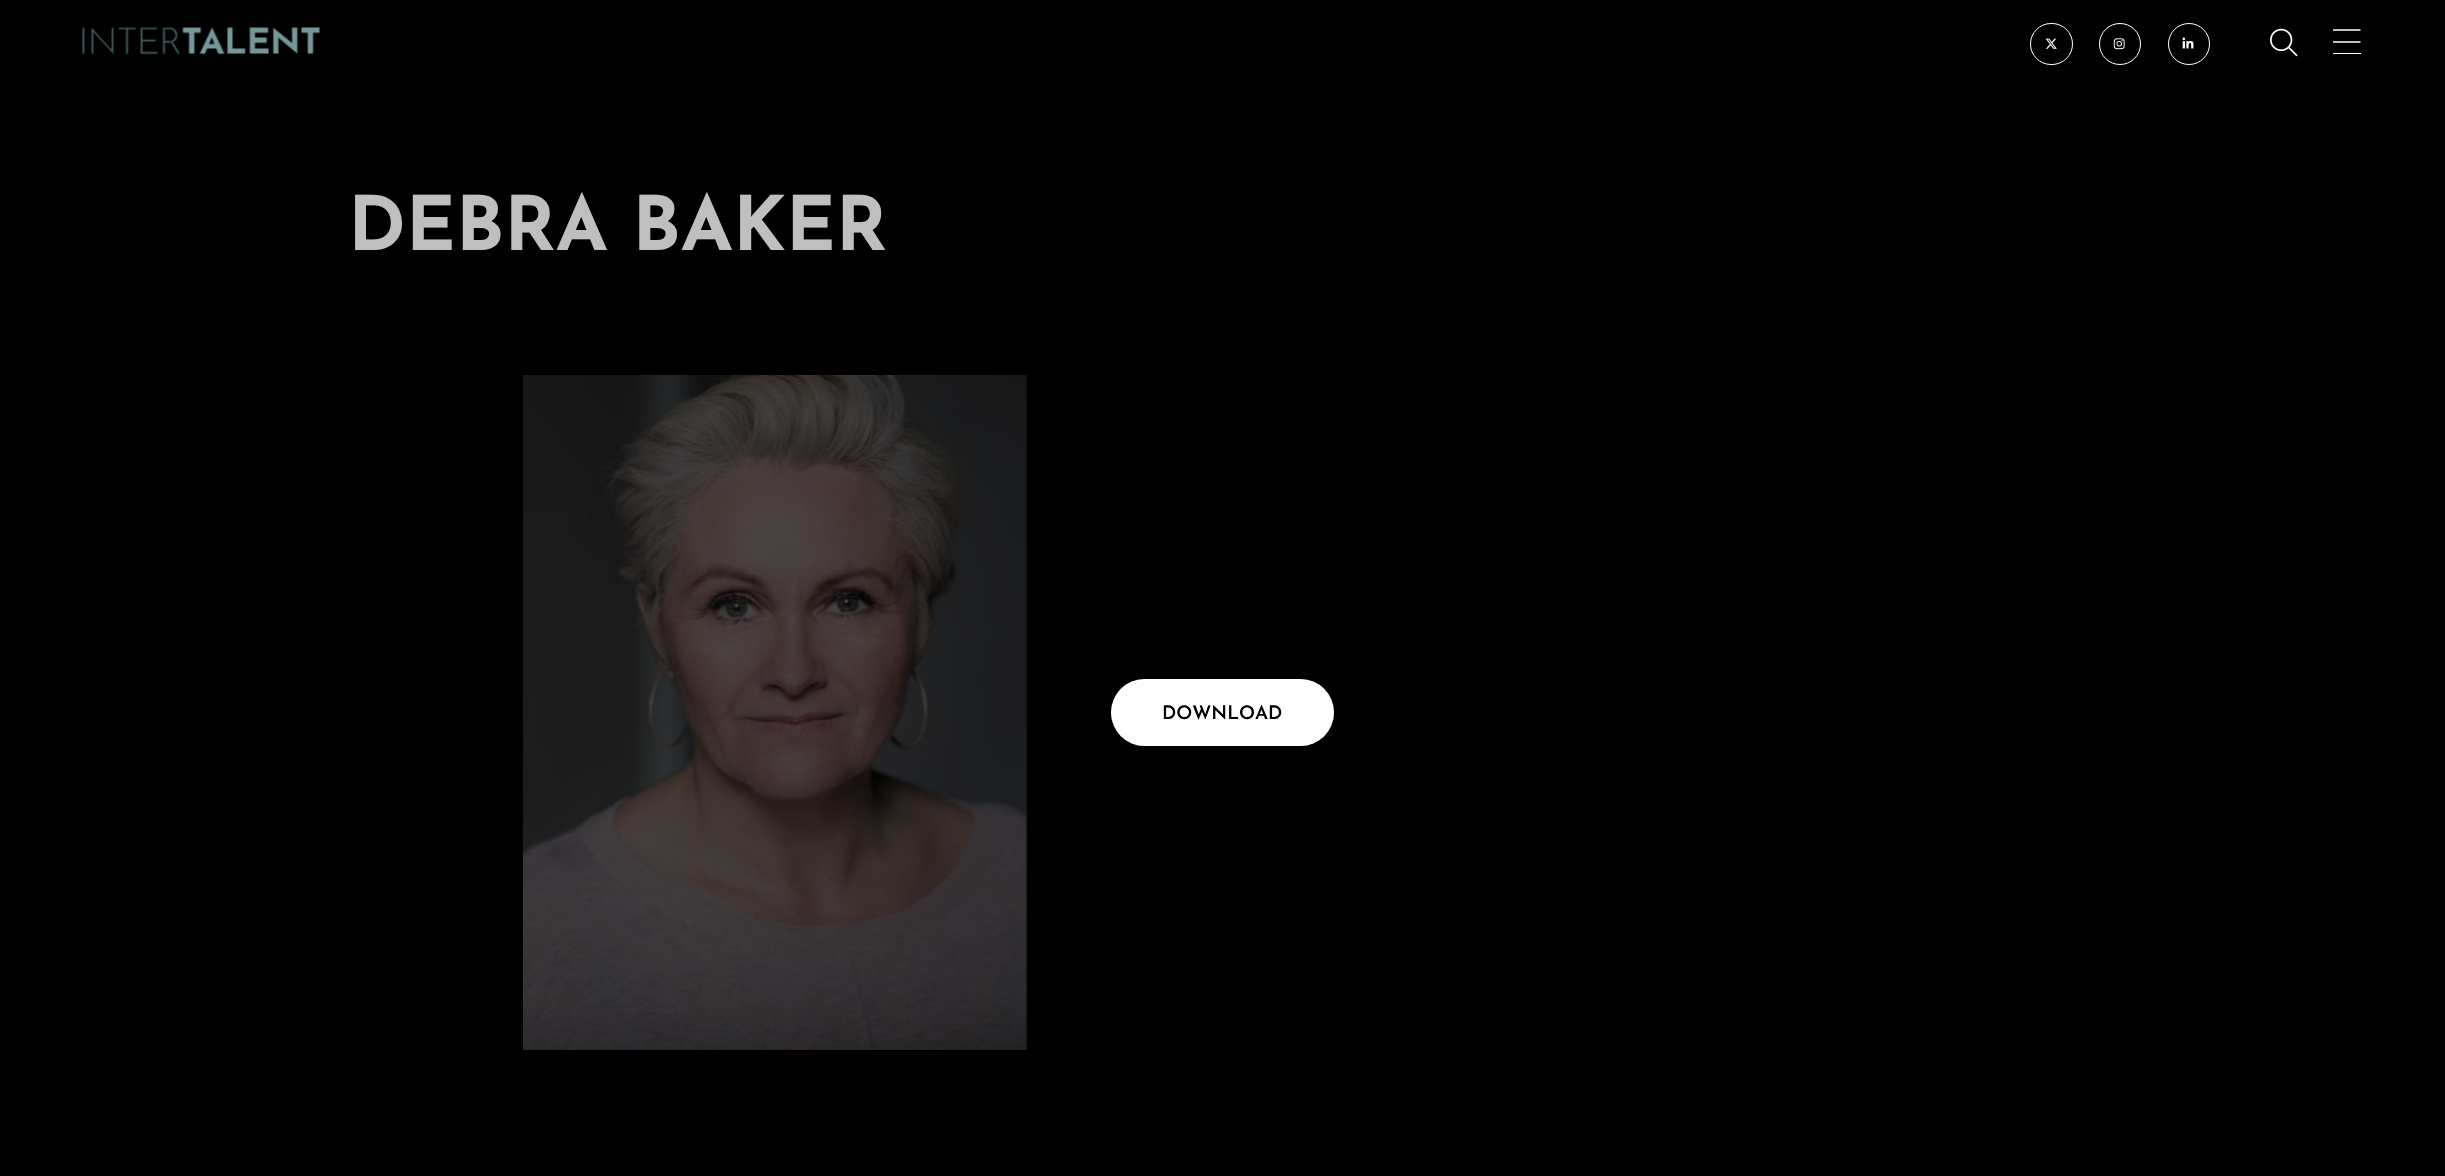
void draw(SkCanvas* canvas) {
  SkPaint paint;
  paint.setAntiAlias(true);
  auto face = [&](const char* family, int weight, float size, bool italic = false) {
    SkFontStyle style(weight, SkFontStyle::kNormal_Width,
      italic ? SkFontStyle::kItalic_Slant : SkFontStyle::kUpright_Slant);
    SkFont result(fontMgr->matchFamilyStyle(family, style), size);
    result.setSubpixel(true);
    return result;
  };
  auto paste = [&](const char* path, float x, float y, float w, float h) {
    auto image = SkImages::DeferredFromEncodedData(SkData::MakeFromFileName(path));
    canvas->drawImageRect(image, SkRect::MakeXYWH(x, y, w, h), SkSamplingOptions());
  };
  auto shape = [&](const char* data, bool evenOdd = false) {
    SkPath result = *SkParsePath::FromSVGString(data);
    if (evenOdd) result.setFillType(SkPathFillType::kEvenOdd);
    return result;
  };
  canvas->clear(0xff000000);
  paste("img/1.png", 82, 27, 238, 28);
  paint.setStroke(true);
  paint.setStrokeWidth(1);
  paint.setColor(0xffffffff);
  canvas->drawRoundRect(SkRect::MakeXYWH(2030.5f, 23.5f, 42, 41), 20.5f, 20.5f, paint);
  paste("img/2.png", 2045, 38, 12, 11);
  canvas->drawCircle(2120, 44, 20.5f, paint);
  paste("img/3.png", 2113, 38, 12, 12);
  canvas->drawCircle(2189, 44, 20.5f, paint);
  paste("img/4.png", 2182, 37, 12, 12);
  paste("img/5.png", 2270, 28, 28, 29);
  paint.setStrokeWidth(1.4f);
  canvas->drawPath(shape("M2333 30H2360.5M2333 42H2360.5"), paint);
  paint.setStroke(false);
  canvas->drawRect(SkRect::MakeXYWH(2333, 53, 28, 1), paint);
  paste("img/6.png", 523, 375, 504, 675);
  canvas->drawRoundRect(SkRect::MakeXYWH(1111, 679, 223, 67), 33.5f, 33.5f, paint);
  paint.setStroke(true);
  paint.setStrokeWidth(1);
  paint.setColor(0x40ffffff);
  canvas->drawRoundRect(SkRect::MakeXYWH(1111.5f, 679.5f, 222, 66), 33, 33, paint);
  auto f0 = face("Josefin Sans", 700, 75);
  paint.setStroke(false);
  paint.setColor(0xffbfbfbf);
  canvas->drawString("DEBRA BAKER", 348, 250, f0, paint);
  auto f1 = face("Josefin Sans", 600, 18.75f);
  paint.setColor(0xff000000);
  canvas->drawString("DOWNLOAD", 1162, 719, f1, paint);
}
